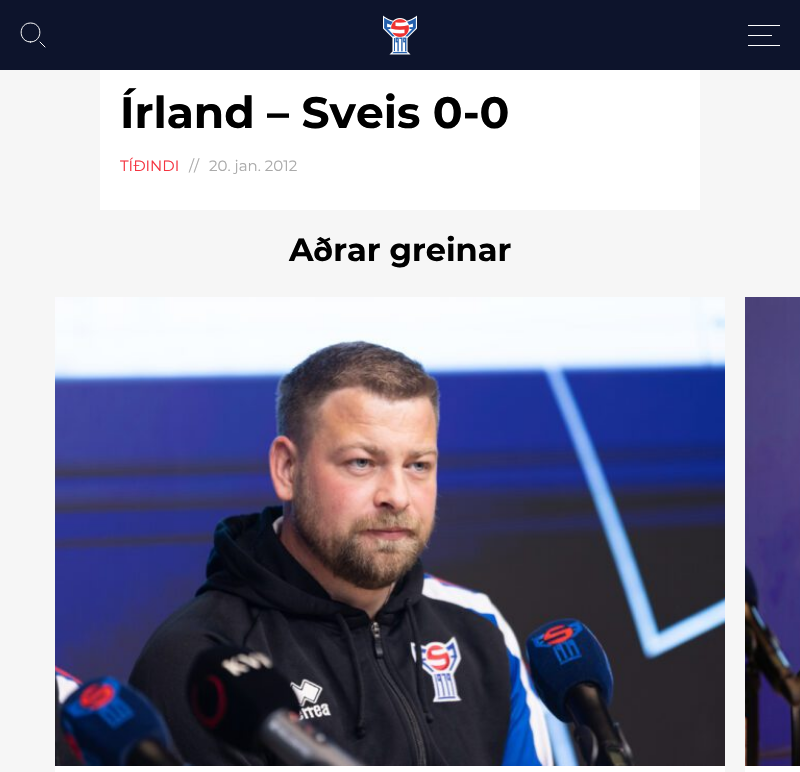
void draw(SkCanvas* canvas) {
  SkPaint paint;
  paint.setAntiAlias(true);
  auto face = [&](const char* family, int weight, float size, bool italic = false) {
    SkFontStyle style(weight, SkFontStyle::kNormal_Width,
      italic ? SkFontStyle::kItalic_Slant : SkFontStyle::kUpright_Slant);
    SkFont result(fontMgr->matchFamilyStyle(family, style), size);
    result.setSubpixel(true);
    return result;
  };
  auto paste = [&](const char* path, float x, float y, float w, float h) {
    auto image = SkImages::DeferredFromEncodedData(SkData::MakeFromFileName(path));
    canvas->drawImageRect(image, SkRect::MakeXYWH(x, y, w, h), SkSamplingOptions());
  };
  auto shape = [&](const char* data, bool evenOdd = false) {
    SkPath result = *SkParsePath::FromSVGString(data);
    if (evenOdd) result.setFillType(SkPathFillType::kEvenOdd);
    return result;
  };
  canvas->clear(0xfff6f6f6);
  paint.setColor(0xff0d142c);
  canvas->drawRect(SkRect::MakeXYWH(0, 0, 800, 70), paint);
  paint.setStroke(true);
  paint.setStrokeWidth(1);
  paint.setStrokeCap(SkPaint::kRound_Cap);
  paint.setStrokeJoin(SkPaint::kRound_Join);
  paint.setColor(0xffffffff);
  canvas->drawPath(shape("M30.5 42C43 42 43 23 30.5 23C18 23 18 42 30.5 42ZM45 47L40 42"), paint);
  paste("img/1.png", 383, 15, 34, 40);
  paste("img/2.png", 748, 25, 32, 21);
  paint.setStroke(false);
  canvas->drawRect(SkRect::MakeXYWH(100, 70, 600, 140), paint);
  paste("img/3.png", 55, 297, 670, 469);
  canvas->drawRect(SkRect::MakeXYWH(55, 766, 670, 6), paint);
  paste("img/4.png", 745, 297, 55, 469);
  canvas->drawRect(SkRect::MakeXYWH(745, 766, 55, 6), paint);
  auto f0 = face("Montserrat", 700, 44);
  paint.setColor(0xff000000);
  canvas->drawString("Írland – Sveis 0-0", 120, 128, f0, paint);
  auto f1 = face("Montserrat", 400, 15);
  paint.setColor(0xfff5333f);
  canvas->drawString("TÍÐINDI", 120, 171, f1, paint);
  paint.setColor(0xffaaaaaa);
  canvas->drawString("//", 189, 171, f1, paint);
  canvas->drawString("20. jan. 2012", 209, 171, f1, paint);
  auto f2 = face("Montserrat", 700, 32);
  paint.setColor(0xff000000);
  canvas->drawString("Aðrar greinar", 289, 261, f2, paint);
}
